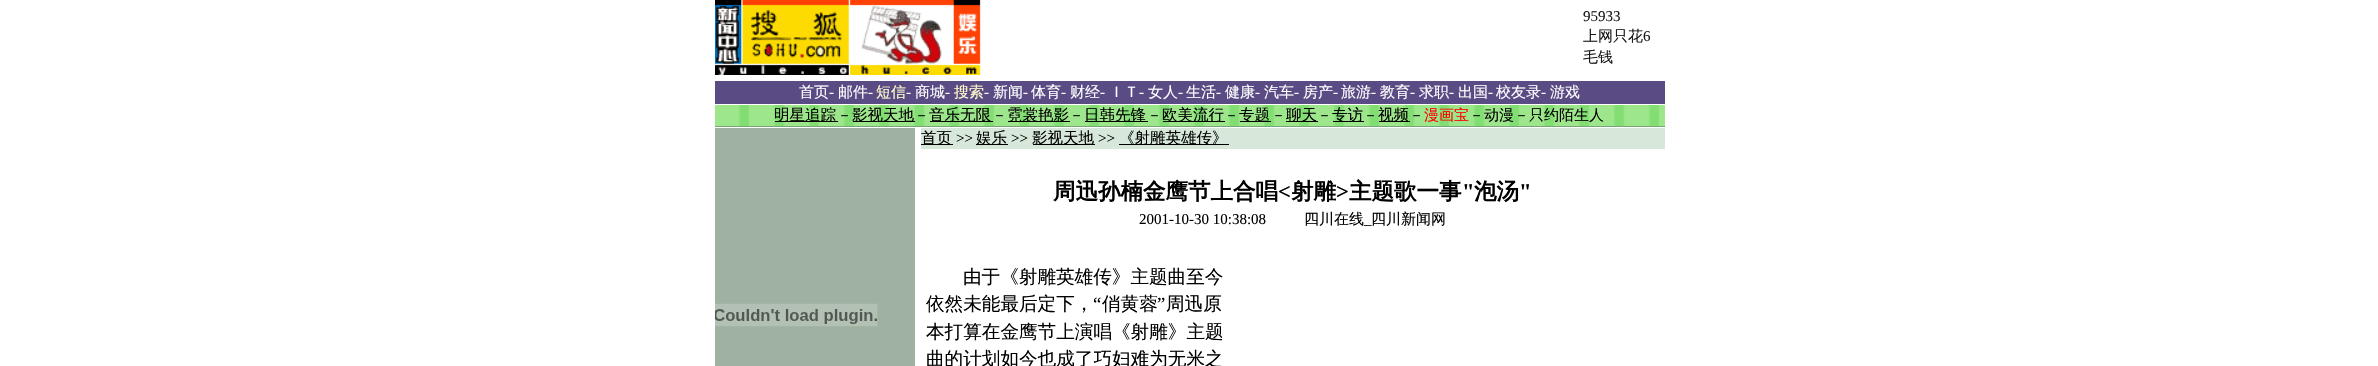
void draw(SkCanvas* canvas) {
  SkPaint paint;
  paint.setAntiAlias(true);
  auto face = [&](const char* family, int weight, float size, bool italic = false) {
    SkFontStyle style(weight, SkFontStyle::kNormal_Width,
      italic ? SkFontStyle::kItalic_Slant : SkFontStyle::kUpright_Slant);
    SkFont result(fontMgr->matchFamilyStyle(family, style), size);
    result.setSubpixel(true);
    return result;
  };
  auto paste = [&](const char* path, float x, float y, float w, float h) {
    auto image = SkImages::DeferredFromEncodedData(SkData::MakeFromFileName(path));
    canvas->drawImageRect(image, SkRect::MakeXYWH(x, y, w, h), SkSamplingOptions());
  };
  canvas->clear(0xffffffff);
  paste("img/1.png", 715, 0, 266, 75);
  paint.setColor(0xff5a4b84);
  canvas->drawRect(SkRect::MakeXYWH(715, 81, 950, 23), paint);
  paste("img/2.png", 715, 105, 950, 21);
  {
    const struct { float x, y, w, h; SkColor color; } items[] = {
      {775, 121, 63, 1, 0xff000000},
      {853, 121, 62, 1, 0xff000000},
      {930, 121, 63, 1, 0xff000000},
      {1008, 121, 62, 1, 0xff000000},
      {1085, 121, 63, 1, 0xff000000},
      {1163, 121, 62, 1, 0xff000000},
      {1240, 121, 31, 1, 0xff000000},
      {1286, 121, 32, 1, 0xff000000},
      {1333, 121, 31, 1, 0xff000000},
      {1379, 121, 31, 1, 0xff000000},
      {715, 126, 950, 1, 0xff76a577},
      {715, 128, 200, 238, 0xff9fb1a0},
    };
    for (auto [x, y, w, h, color] : items) {
      paint.setColor(color);
      canvas->drawRect(SkRect::MakeXYWH(x, y, w, h), paint);
    }
  }
  paste("img/3.png", 715, 303, 163, 24);
  {
    const struct { float x, y, w, h; SkColor color; } items[] = {
      {921, 128, 744, 21, 0xffd7e7d9},
      {921, 144, 32, 1, 0xff000000},
      {976, 144, 32, 1, 0xff000000},
      {1033, 144, 62, 1, 0xff000000},
      {1119, 144, 110, 1, 0xff000000},
    };
    for (auto [x, y, w, h, color] : items) {
      paint.setColor(color);
      canvas->drawRect(SkRect::MakeXYWH(x, y, w, h), paint);
    }
  }
  auto f0 = face("Liberation Serif", 400, 15);
  paint.setColor(0xff191919);
  canvas->drawString("95933", 1583, 21, f0, paint);
  auto f1 = face("WenQuanYi Zen Hei", 500, 15);
  canvas->drawString("上网只花", 1583, 41, f1, paint);
  canvas->drawString("6", 1643, 41, f0, paint);
  canvas->drawString("毛钱", 1583, 62, f1, paint);
  paint.setColor(0xffffffff);
  canvas->drawString("首页", 799, 97, f1, paint);
  canvas->drawString("-", 829, 97, f0, paint);
  canvas->drawString("邮件", 838, 97, f1, paint);
  canvas->drawString("-", 868, 97, f0, paint);
  paint.setColor(0xfffffccc);
  canvas->drawString("短信", 876, 97, f1, paint);
  paint.setColor(0xffffffff);
  canvas->drawString("-", 906, 97, f0, paint);
  canvas->drawString("商城", 915, 97, f1, paint);
  canvas->drawString("-", 945, 97, f0, paint);
  paint.setColor(0xfffffccc);
  canvas->drawString("搜索", 954, 97, f1, paint);
  paint.setColor(0xffffffff);
  canvas->drawString("-", 984, 97, f0, paint);
  canvas->drawString("新闻", 993, 97, f1, paint);
  canvas->drawString("-", 1023, 97, f0, paint);
  canvas->drawString("体育", 1031, 97, f1, paint);
  canvas->drawString("-", 1061, 97, f0, paint);
  canvas->drawString("财经", 1070, 97, f1, paint);
  canvas->drawString("-", 1100, 97, f0, paint);
  canvas->drawString("ＩＴ", 1109, 97, f1, paint);
  canvas->drawString("-", 1139, 97, f0, paint);
  canvas->drawString("女人", 1148, 97, f1, paint);
  canvas->drawString("-", 1178, 97, f0, paint);
  canvas->drawString("生活", 1186, 97, f1, paint);
  canvas->drawString("-", 1216, 97, f0, paint);
  canvas->drawString("健康", 1225, 97, f1, paint);
  canvas->drawString("-", 1255, 97, f0, paint);
  canvas->drawString("汽车", 1264, 97, f1, paint);
  canvas->drawString("-", 1294, 97, f0, paint);
  canvas->drawString("房产", 1303, 97, f1, paint);
  canvas->drawString("-", 1333, 97, f0, paint);
  canvas->drawString("旅游", 1341, 97, f1, paint);
  canvas->drawString("-", 1371, 97, f0, paint);
  canvas->drawString("教育", 1380, 97, f1, paint);
  canvas->drawString("-", 1410, 97, f0, paint);
  canvas->drawString("求职", 1419, 97, f1, paint);
  canvas->drawString("-", 1449, 97, f0, paint);
  canvas->drawString("出国", 1458, 97, f1, paint);
  canvas->drawString("-", 1488, 97, f0, paint);
  canvas->drawString("校友录", 1496, 97, f1, paint);
  canvas->drawString("-", 1541, 97, f0, paint);
  canvas->drawString("游戏", 1550, 97, f1, paint);
  auto f2 = face("WenQuanYi Zen Hei", 500, 15.5f);
  paint.setColor(0xff000000);
  canvas->drawString("明星追踪", 774, 120, f2, paint);
  canvas->drawString("－", 837, 120, f1, paint);
  canvas->drawString("影视天地", 852, 120, f2, paint);
  canvas->drawString("－", 914, 120, f1, paint);
  canvas->drawString("音乐无限", 929, 120, f2, paint);
  canvas->drawString("－", 992, 120, f1, paint);
  canvas->drawString("霓裳艳影", 1007, 120, f2, paint);
  canvas->drawString("－", 1069, 120, f1, paint);
  canvas->drawString("日韩先锋", 1084, 120, f2, paint);
  canvas->drawString("－", 1147, 120, f1, paint);
  canvas->drawString("欧美流行", 1162, 120, f2, paint);
  canvas->drawString("－", 1224, 120, f1, paint);
  canvas->drawString("专题", 1239, 120, f2, paint);
  canvas->drawString("－", 1271, 120, f1, paint);
  canvas->drawString("聊天", 1286, 120, f2, paint);
  canvas->drawString("－", 1317, 120, f1, paint);
  canvas->drawString("专访", 1332, 120, f2, paint);
  canvas->drawString("－", 1363, 120, f1, paint);
  canvas->drawString("视频", 1378, 120, f2, paint);
  canvas->drawString("－", 1409, 120, f1, paint);
  paint.setColor(0xffff0000);
  canvas->drawString("漫画宝", 1424, 120, f1, paint);
  paint.setColor(0xff000000);
  canvas->drawString("－动漫－只约陌生人", 1469, 120, f1, paint);
  canvas->drawString("首页", 921, 143, f2, paint);
  canvas->drawString(">>", 956, 143, f0, paint);
  canvas->drawString("娱乐", 976, 143, f2, paint);
  canvas->drawString(">>", 1011, 143, f0, paint);
  canvas->drawString("影视天地", 1032, 143, f2, paint);
  canvas->drawString(">>", 1098, 143, f0, paint);
  canvas->drawString("《射雕英雄传》", 1119, 143, f2, paint);
  auto f3 = face("WenQuanYi Zen Hei", 700, 22.5f);
  canvas->drawString("周迅孙楠金鹰节上合唱", 1053, 199, f3, paint);
  auto f4 = face("Liberation Serif", 700, 22.5f);
  canvas->drawString("<", 1278, 199, f4, paint);
  canvas->drawString("射雕", 1291, 199, f3, paint);
  canvas->drawString(">", 1336, 199, f4, paint);
  canvas->drawString("主题歌一事", 1349, 199, f3, paint);
  canvas->drawString("\"", 1462, 199, f4, paint);
  canvas->drawString("泡汤", 1474, 199, f3, paint);
  canvas->drawString("\"", 1519, 199, f4, paint);
  canvas->drawString("2001-10-30 10:38:08", 1139, 224, f0, paint);
  canvas->drawString("四川在线", 1304, 224, f1, paint);
  canvas->drawString("四川新闻网", 1371, 224, f1, paint);
  canvas->drawString("_", 1364, 224, f0, paint);
  auto f5 = face("WenQuanYi Zen Hei", 500, 18.6f);
  canvas->drawString("由于《射雕英雄传》主题曲至今", 963, 283, f5, paint);
  canvas->drawString("依然未能最后定下，", 926, 310, f5, paint);
  auto f6 = face("Liberation Serif", 400, 18.6f);
  canvas->drawString("“", 1093, 310, f6, paint);
  canvas->drawString("俏黄蓉", 1102, 310, f5, paint);
  canvas->drawString("”", 1157, 310, f6, paint);
  {
    const struct { const char* s; float x, y; } items[] = {
      {"周迅原", 1166, 310},
      {"本打算在金鹰节上演唱《射雕》主题", 926, 338},
      {"曲的计划如今也成了巧妇难为无米之", 926, 365},
    };
    for (auto [s, x, y] : items) {
      canvas->drawString(s, x, y, f5, paint);
    }
  }
}
